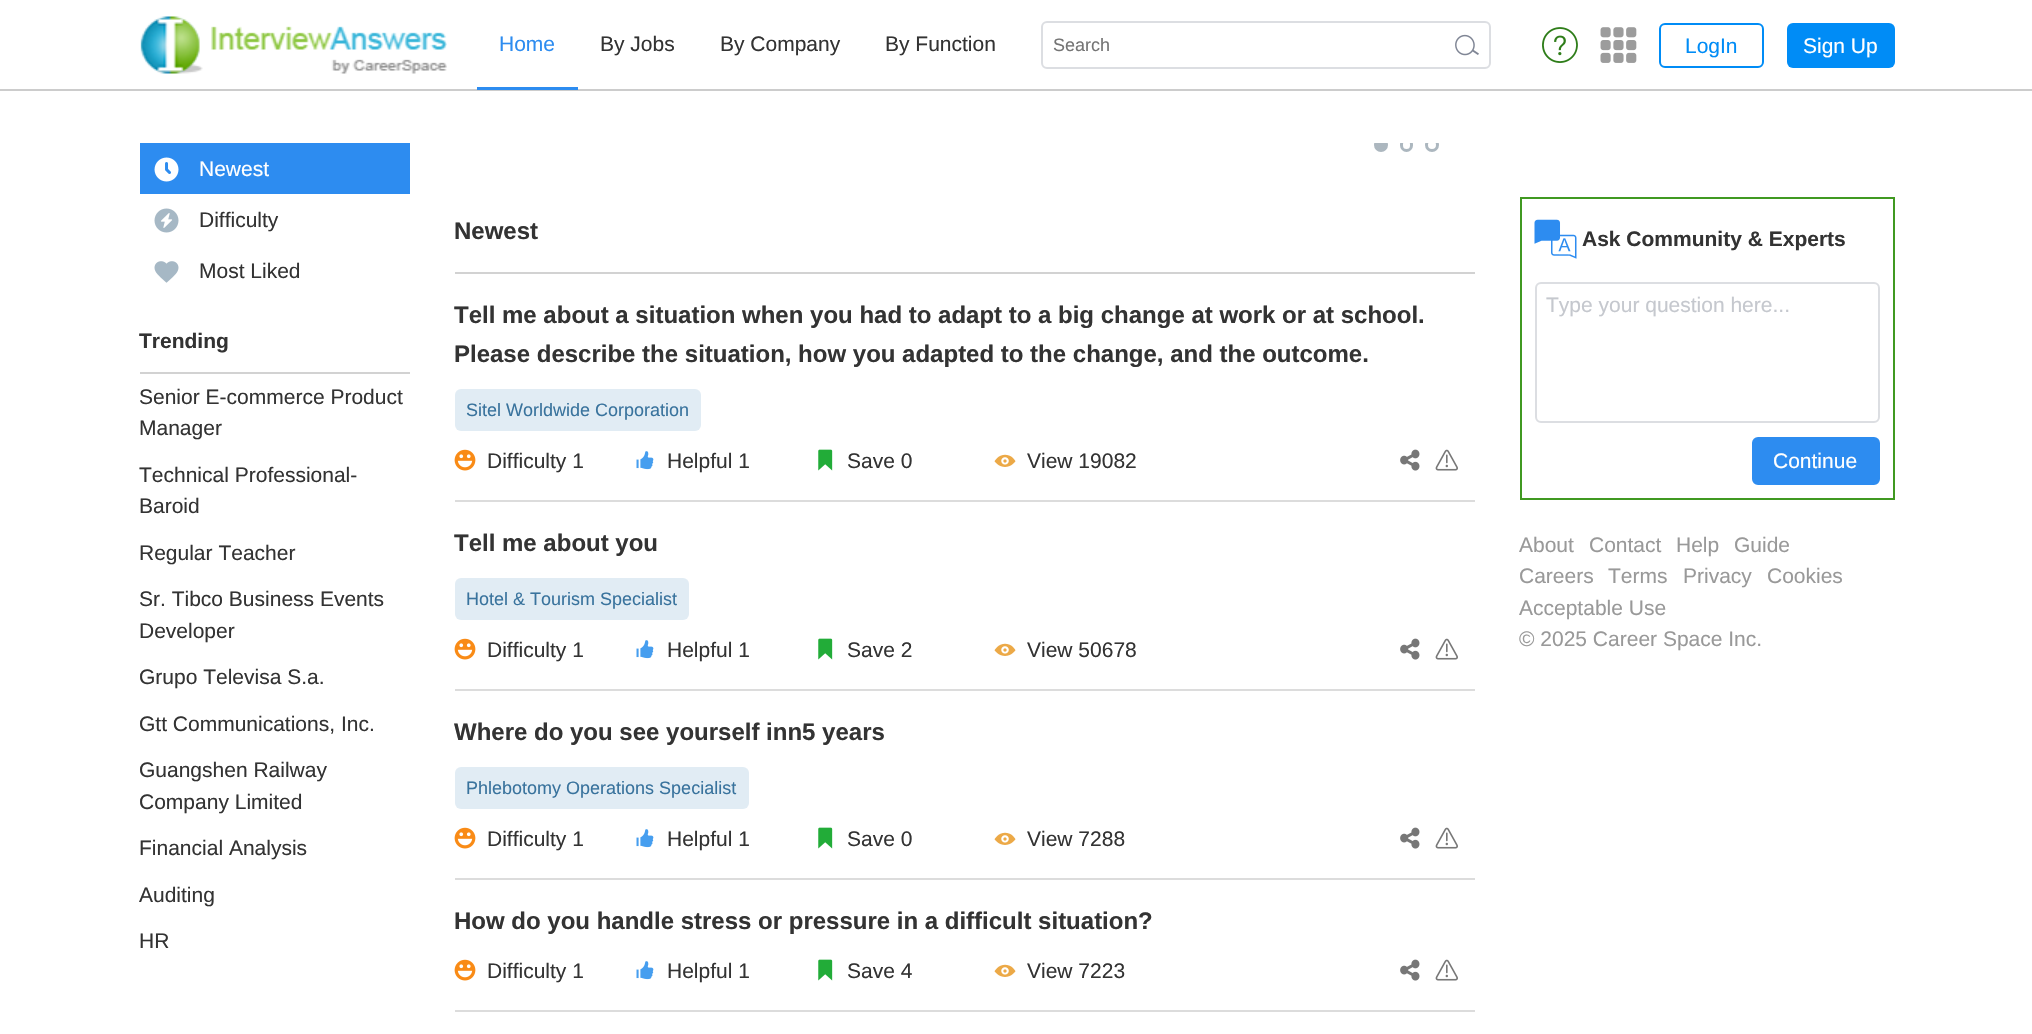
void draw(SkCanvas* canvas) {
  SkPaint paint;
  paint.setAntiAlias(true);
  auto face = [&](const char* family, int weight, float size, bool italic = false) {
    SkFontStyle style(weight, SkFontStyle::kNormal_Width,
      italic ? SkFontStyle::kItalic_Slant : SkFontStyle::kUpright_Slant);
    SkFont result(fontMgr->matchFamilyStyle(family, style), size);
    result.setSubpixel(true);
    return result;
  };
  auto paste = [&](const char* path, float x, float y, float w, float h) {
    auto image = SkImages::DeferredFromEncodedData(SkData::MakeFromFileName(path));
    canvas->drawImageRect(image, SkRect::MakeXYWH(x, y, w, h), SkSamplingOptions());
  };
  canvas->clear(0xffffffff);
  paint.setColor(0xffcccccc);
  canvas->drawRect(SkRect::MakeXYWH(0, 89, 2032, 2), paint);
  paste("img/1.png", 140, 16, 307, 58);
  paint.setColor(0xff2d8cf0);
  canvas->drawRect(SkRect::MakeXYWH(477, 87, 101, 3), paint);
  paint.setStroke(true);
  paint.setStrokeWidth(2);
  paint.setColor(0xffdcdee2);
  canvas->drawRoundRect(SkRect::MakeXYWH(1042, 22, 448, 46), 5, 5, paint);
  paste("img/2.png", 1455, 34, 24, 22);
  paste("img/3.png", 1542, 27, 36, 36);
  paste("img/4.png", 1600, 27, 37, 36);
  paint.setColor(0xff008cf6);
  canvas->drawRoundRect(SkRect::MakeXYWH(1660, 24, 103, 43), 5, 5, paint);
  paint.setStroke(false);
  canvas->drawRoundRect(SkRect::MakeXYWH(1787, 23, 108, 45), 6, 6, paint);
  paint.setColor(0xff2d8cf0);
  canvas->drawRect(SkRect::MakeXYWH(140, 143, 270, 51), paint);
  paste("img/5.png", 154, 157, 25, 25);
  paste("img/6.png", 154, 208, 25, 25);
  paste("img/7.png", 154, 261, 25, 22);
  paint.setColor(0xffd2d2d2);
  canvas->drawRect(SkRect::MakeXYWH(140, 372, 270, 2), paint);
  canvas->save();
  canvas->clipRect(SkRect::MakeXYWH(455, 143, 1020, 33));
  paint.setColor(0xffacb7bf);
  canvas->drawCircle(1381, 145, 5.5f, paint);
  paint.setStroke(true);
  paint.setStrokeWidth(3);
  canvas->drawCircle(1381, 145, 5.5f, paint);
  canvas->drawRoundRect(SkRect::MakeXYWH(1401.5f, 139.5f, 10, 11), 5, 5, paint);
  canvas->drawCircle(1432, 145, 5.5f, paint);
  canvas->restore();
  paint.setStroke(false);
  paint.setColor(0xffd2d2d2);
  canvas->drawRect(SkRect::MakeXYWH(455, 272, 1020, 2), paint);
  paint.setColor(0xffdcdcdc);
  canvas->drawRect(SkRect::MakeXYWH(455, 500, 1020, 2), paint);
  paint.setColor(0xffe1ecf4);
  canvas->drawRoundRect(SkRect::MakeXYWH(455, 389, 246, 42), 6, 6, paint);
  paste("img/8.png", 454, 449, 22, 22);
  paste("img/9.png", 636, 451, 18, 19);
  paste("img/10.png", 818, 449, 15, 22);
  paste("img/11.png", 994, 454, 22, 13);
  paste("img/12.png", 1400, 449, 20, 22);
  paste("img/13.png", 1435, 449, 23, 22);
  paint.setColor(0xffdcdcdc);
  canvas->drawRect(SkRect::MakeXYWH(455, 689, 1020, 2), paint);
  paint.setColor(0xffe1ecf4);
  canvas->drawRoundRect(SkRect::MakeXYWH(455, 578, 234, 42), 6, 6, paint);
  paste("img/8.png", 454, 638, 22, 22);
  paste("img/9.png", 636, 640, 18, 19);
  paste("img/10.png", 818, 638, 15, 22);
  paste("img/11.png", 994, 643, 22, 13);
  paste("img/12.png", 1400, 638, 20, 22);
  paste("img/13.png", 1435, 638, 23, 22);
  paint.setColor(0xffdcdcdc);
  canvas->drawRect(SkRect::MakeXYWH(455, 878, 1020, 2), paint);
  paint.setColor(0xffe1ecf4);
  canvas->drawRoundRect(SkRect::MakeXYWH(455, 767, 294, 42), 6, 6, paint);
  paste("img/8.png", 454, 827, 22, 22);
  paste("img/9.png", 636, 829, 18, 19);
  paste("img/10.png", 818, 827, 15, 22);
  paste("img/11.png", 994, 832, 22, 13);
  paste("img/12.png", 1400, 827, 20, 22);
  paste("img/13.png", 1435, 827, 23, 22);
  paint.setColor(0xffdcdcdc);
  canvas->drawRect(SkRect::MakeXYWH(455, 1010, 1020, 2), paint);
  paste("img/8.png", 454, 959, 22, 22);
  paste("img/9.png", 636, 961, 18, 19);
  paste("img/10.png", 818, 959, 15, 22);
  paste("img/11.png", 994, 964, 22, 13);
  paste("img/12.png", 1400, 959, 20, 22);
  paste("img/13.png", 1435, 959, 23, 22);
  paint.setStroke(true);
  paint.setStrokeWidth(2);
  paint.setColor(0xff409921);
  canvas->drawRect(SkRect::MakeXYWH(1521, 198, 373, 301), paint);
  paste("img/14.png", 1534, 219, 43, 40);
  paint.setColor(0xffdcdee2);
  canvas->drawRoundRect(SkRect::MakeXYWH(1536, 283, 343, 139), 5, 5, paint);
  paint.setStroke(false);
  paint.setColor(0xff2d8cf0);
  canvas->drawRoundRect(SkRect::MakeXYWH(1753, 438, 126, 46), 5, 5, paint);
  paint.setStroke(true);
  canvas->drawRoundRect(SkRect::MakeXYWH(1753, 438, 126, 46), 5, 5, paint);
  auto f0 = face("Liberation Sans", 400, 21);
  paint.setStroke(false);
  canvas->drawString("Home", 499, 51, f0, paint);
  paint.setColor(0xff333333);
  {
    const struct { const char* s; float x, y; } items[] = {
      {"By Jobs", 600, 51},
      {"By Company", 720, 51},
      {"By Function", 885, 51},
    };
    for (auto [s, x, y] : items) {
      canvas->drawString(s, x, y, f0, paint);
    }
  }
  auto f1 = face("Liberation Sans", 400, 18);
  paint.setColor(0xff757575);
  canvas->drawString("Search", 1053, 51, f1, paint);
  paint.setColor(0xff008cf6);
  canvas->drawString("LogIn", 1685, 53, f0, paint);
  paint.setColor(0xffffffff);
  canvas->drawString("Sign Up", 1803, 53, f0, paint);
  canvas->drawString("Newest", 199, 176, f0, paint);
  paint.setColor(0xff333333);
  canvas->drawString("Difficulty", 199, 227, f0, paint);
  canvas->drawString("Most Liked", 199, 278, f0, paint);
  auto f2 = face("Liberation Sans", 700, 21);
  canvas->drawString("Trending", 139, 348, f2, paint);
  {
    const struct { const char* s; float x, y; } items[] = {
      {"Senior E-commerce Product", 139, 404},
      {"Manager", 139, 435},
      {"Technical Professional-", 139, 482},
      {"Baroid", 139, 513},
      {"Regular Teacher", 139, 560},
      {"Sr. Tibco Business Events", 139, 606},
      {"Developer", 139, 638},
      {"Grupo Televisa S.a.", 139, 684},
      {"Gtt Communications, Inc.", 139, 731},
      {"Guangshen Railway", 139, 777},
      {"Company Limited", 139, 809},
      {"Financial Analysis", 139, 855},
      {"Auditing", 139, 902},
      {"HR", 139, 948},
    };
    for (auto [s, x, y] : items) {
      canvas->drawString(s, x, y, f0, paint);
    }
  }
  auto f3 = face("Liberation Sans", 700, 24);
  {
    const struct { const char* s; float x, y; } items[] = {
      {"Newest", 454, 239},
      {"Tell me about a situation when you had to adapt to a big change at work or at school.", 454, 323},
      {"Please describe the situation, how you adapted to the change, and the outcome.", 454, 362},
    };
    for (auto [s, x, y] : items) {
      canvas->drawString(s, x, y, f3, paint);
    }
  }
  paint.setColor(0xff39739d);
  canvas->drawString("Sitel Worldwide Corporation", 466, 416, f1, paint);
  paint.setColor(0xff333333);
  {
    const struct { const char* s; float x, y; } items[] = {
      {"Difficulty 1", 487, 468},
      {"Helpful 1", 667, 468},
      {"Save 0", 847, 468},
      {"View 19082", 1027, 468},
    };
    for (auto [s, x, y] : items) {
      canvas->drawString(s, x, y, f0, paint);
    }
  }
  canvas->drawString("Tell me about you", 454, 551, f3, paint);
  paint.setColor(0xff39739d);
  canvas->drawString("Hotel & Tourism Specialist", 466, 605, f1, paint);
  paint.setColor(0xff333333);
  {
    const struct { const char* s; float x, y; } items[] = {
      {"Difficulty 1", 487, 657},
      {"Helpful 1", 667, 657},
      {"Save 2", 847, 657},
      {"View 50678", 1027, 657},
    };
    for (auto [s, x, y] : items) {
      canvas->drawString(s, x, y, f0, paint);
    }
  }
  canvas->drawString("Where do you see yourself inn5 years", 454, 740, f3, paint);
  paint.setColor(0xff39739d);
  canvas->drawString("Phlebotomy Operations Specialist", 466, 794, f1, paint);
  paint.setColor(0xff333333);
  {
    const struct { const char* s; float x, y; } items[] = {
      {"Difficulty 1", 487, 846},
      {"Helpful 1", 667, 846},
      {"Save 0", 847, 846},
      {"View 7288", 1027, 846},
    };
    for (auto [s, x, y] : items) {
      canvas->drawString(s, x, y, f0, paint);
    }
  }
  canvas->drawString("How do you handle stress or pressure in a difficult situation?", 454, 929, f3, paint);
  {
    const struct { const char* s; float x, y; } items[] = {
      {"Difficulty 1", 487, 978},
      {"Helpful 1", 667, 978},
      {"Save 4", 847, 978},
      {"View 7223", 1027, 978},
    };
    for (auto [s, x, y] : items) {
      canvas->drawString(s, x, y, f0, paint);
    }
  }
  canvas->drawString("Ask Community & Experts", 1582, 246, f2, paint);
  paint.setColor(0xffc5c8ce);
  canvas->drawString("Type your question here...", 1546, 312, f0, paint);
  paint.setColor(0xffffffff);
  canvas->drawString("Continue", 1773, 468, f0, paint);
  paint.setColor(0xff999999);
  {
    const struct { const char* s; float x, y; } items[] = {
      {"About", 1519, 552},
      {"Contact", 1589, 552},
      {"Help", 1676, 552},
      {"Guide", 1734, 552},
      {"Careers", 1519, 583},
      {"Terms", 1608, 583},
      {"Privacy", 1683, 583},
      {"Cookies", 1767, 583},
      {"Acceptable Use", 1519, 615},
      {"© 2025 Career Space Inc.", 1519, 646},
    };
    for (auto [s, x, y] : items) {
      canvas->drawString(s, x, y, f0, paint);
    }
  }
}
